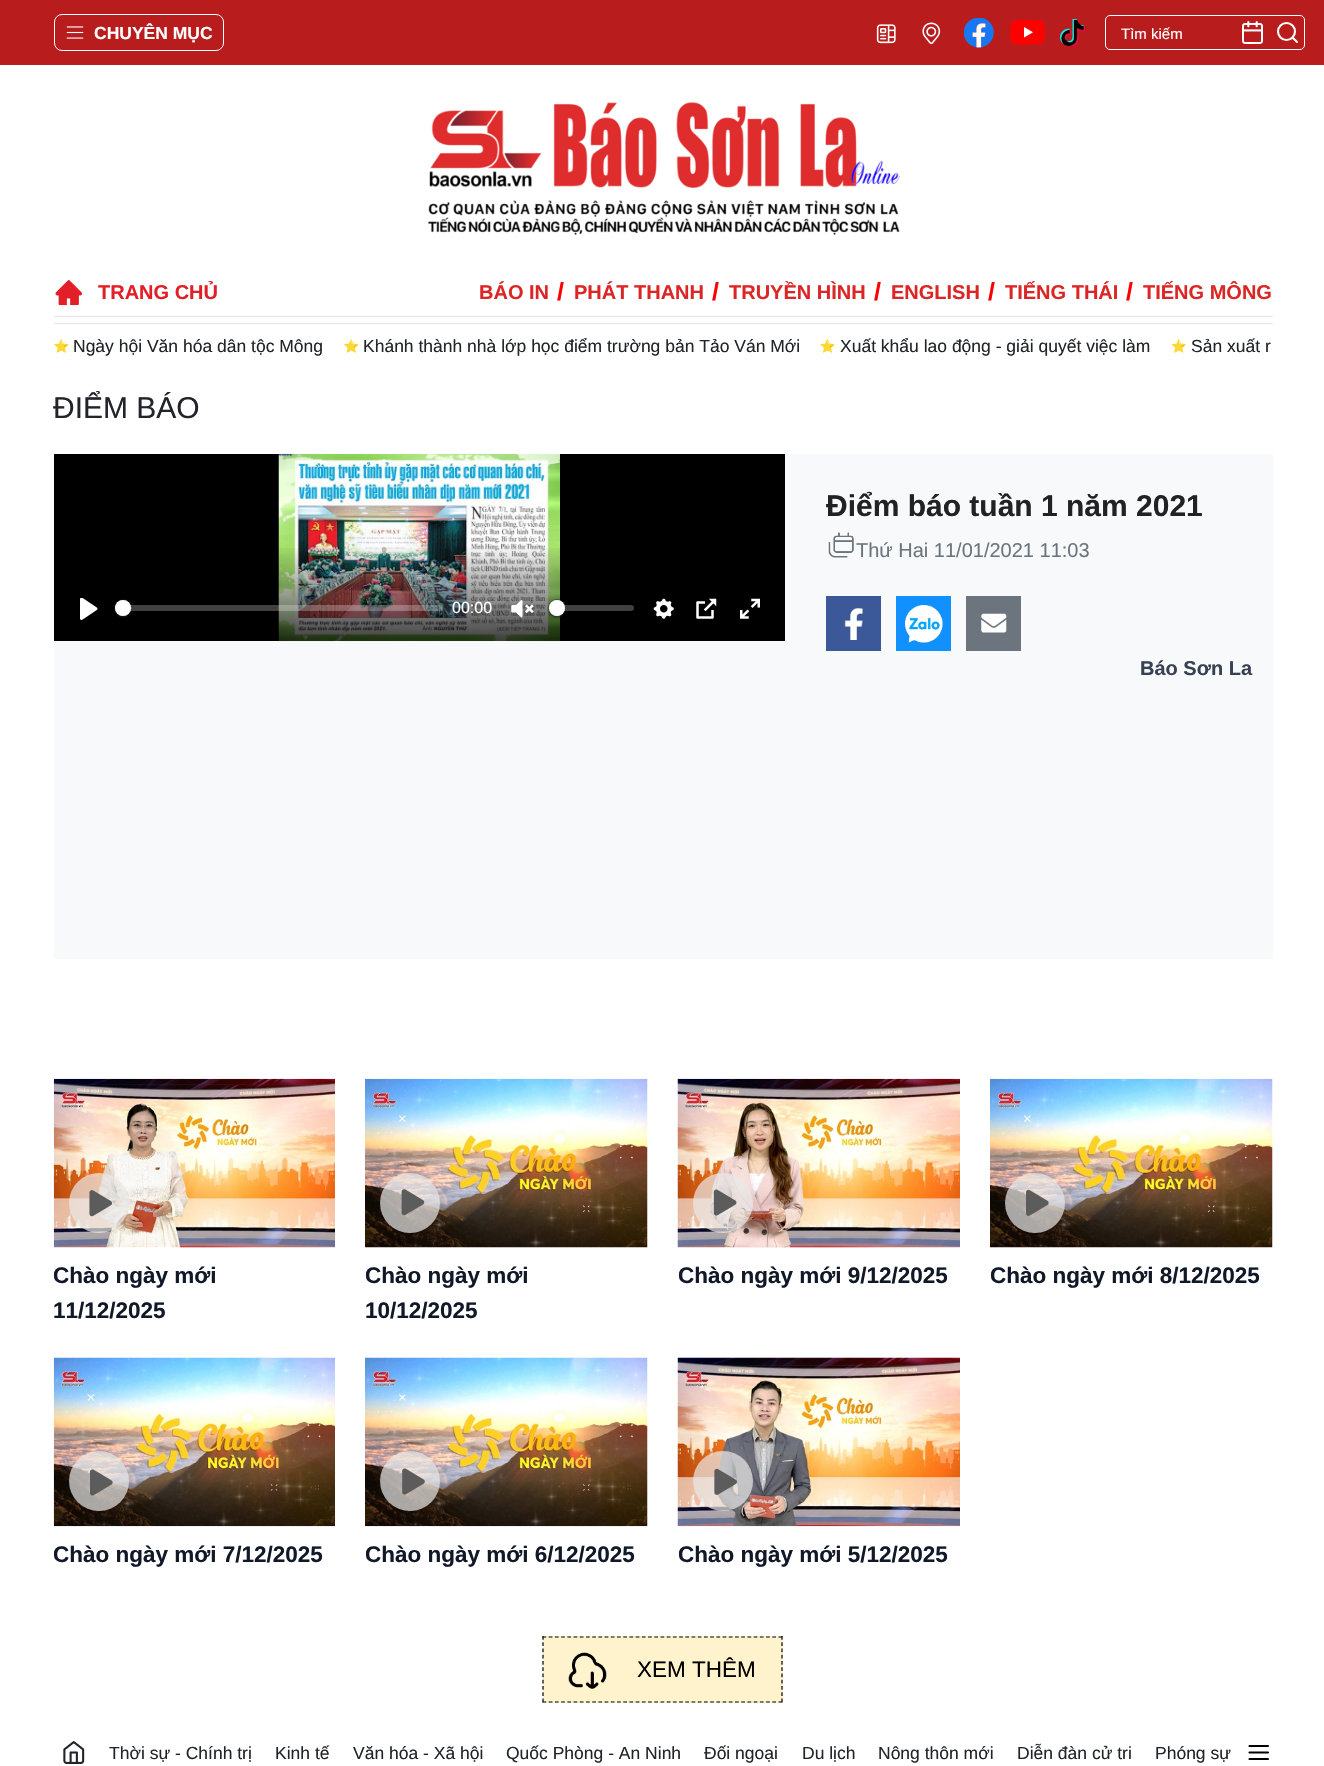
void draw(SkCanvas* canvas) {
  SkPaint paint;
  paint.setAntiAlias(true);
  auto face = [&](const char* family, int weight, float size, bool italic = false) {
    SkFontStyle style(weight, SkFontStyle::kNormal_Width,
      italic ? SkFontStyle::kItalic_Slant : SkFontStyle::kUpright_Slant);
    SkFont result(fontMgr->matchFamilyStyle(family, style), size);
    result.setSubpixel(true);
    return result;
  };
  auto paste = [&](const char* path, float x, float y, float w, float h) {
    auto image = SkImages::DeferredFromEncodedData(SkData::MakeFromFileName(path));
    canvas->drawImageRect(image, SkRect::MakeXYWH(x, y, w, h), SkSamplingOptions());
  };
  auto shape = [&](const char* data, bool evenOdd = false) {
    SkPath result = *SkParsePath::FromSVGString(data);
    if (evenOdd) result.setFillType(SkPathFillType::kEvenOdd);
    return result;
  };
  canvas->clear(0xffffffff);
  paint.setColor(0xffb91c1c);
  canvas->drawRect(SkRect::MakeXYWH(0, 0, 1324, 65), paint);
  paint.setStroke(true);
  paint.setStrokeWidth(1);
  paint.setColor(0xffffffff);
  canvas->drawRoundRect(SkRect::MakeXYWH(54.5f, 14.5f, 169, 36), 7.5f, 7.5f, paint);
  paste("img/1.png", 66, 26, 18, 13);
  paste("img/2.png", 876, 24, 20, 20);
  paste("img/3.png", 922, 22, 19, 23);
  paste("img/4.png", 964, 18, 30, 30);
  paste("img/5.png", 1010, 20, 35, 25);
  paste("img/6.png", 1060, 19, 25, 27);
  canvas->drawRoundRect(SkRect::MakeXYWH(1105.5f, 15.5f, 199, 34), 4.5f, 4.5f, paint);
  paste("img/7.png", 1242, 21, 21, 23);
  paint.setStrokeWidth(2.1f);
  canvas->drawCircle(1286.5f, 31.5f, 8.5f, paint);
  paint.setStrokeCap(SkPaint::kRound_Cap);
  paint.setStrokeJoin(SkPaint::kRound_Join);
  canvas->drawPath(shape("M1297 42L1292.5 37.5"), paint);
  paste("img/8.png", 427, 101, 474, 134);
  paste("img/9.png", 55, 280, 27, 26);
  paint.setStroke(false);
  paint.setColor(0xffe5e7eb);
  canvas->drawRect(SkRect::MakeXYWH(54, 316, 1219, 1), paint);
  canvas->drawRect(SkRect::MakeXYWH(54, 323, 1219, 1), paint);
  paste("img/10.png", 54, 339, 15, 14);
  paste("img/10.png", 344, 339, 15, 14);
  paste("img/11.png", 820, 339, 15, 14);
  paste("img/12.png", 1171, 339, 15, 14);
  paint.setColor(0xfff8f9fa);
  canvas->drawRect(SkRect::MakeXYWH(54, 454, 1219, 505), paint);
  paint.setColor(0xff000000);
  canvas->drawRect(SkRect::MakeXYWH(54, 454, 731, 187), paint);
  paste("img/13.png", 114, 453, 452, 189);
  {
    const SkColor colors[] = {0x00000000, 0xbf000000};
    const float stops[] = {0, 1};
    const SkPoint ends[] = {{419, 545}, {419, 641}};
    paint.setShader(SkGradientShader::MakeLinear(ends, colors, stops, 2, SkTileMode::kClamp));
    paint.setAlpha(255);
  }
  canvas->drawRect(SkRect::MakeXYWH(114, 548, 452, 93), paint);
  paste("img/14.png", 80, 598, 18, 22);
  paint.setShader(nullptr);
  paint.setColor(0x40ffffff);
  canvas->drawRoundRect(SkRect::MakeXYWH(115, 605, 328, 6), 3, 3, paint);
  paint.setStroke(true);
  paint.setStrokeWidth(1);
  paint.setStrokeCap(SkPaint::kButt_Cap);
  paint.setStrokeJoin(SkPaint::kMiter_Join);
  paint.setColor(0x3323282f);
  canvas->drawCircle(123.5f, 608.5f, 9, paint);
  paint.setStroke(false);
  paint.setColor(0x2623282f);
  paint.setMaskFilter(SkMaskFilter::MakeBlur(kNormal_SkBlurStyle, 0.5f));
  canvas->drawRoundRect(SkRect::MakeXYWH(115, 601, 16, 17), 8, 8, paint);
  paint.setMaskFilter(nullptr);
  paint.setColor(0xffffffff);
  canvas->drawCircle(123, 608, 8, paint);
  paste("img/15.png", 511, 600, 23, 18);
  paint.setColor(0x40ffffff);
  canvas->drawRoundRect(SkRect::MakeXYWH(549, 605, 85, 6), 3, 3, paint);
  paint.setStroke(true);
  paint.setColor(0x3323282f);
  canvas->drawRoundRect(SkRect::MakeXYWH(548.5f, 599.5f, 17, 18), 8.5f, 8.5f, paint);
  paint.setStroke(false);
  paint.setColor(0x2623282f);
  paint.setMaskFilter(SkMaskFilter::MakeBlur(kNormal_SkBlurStyle, 0.5f));
  canvas->drawRoundRect(SkRect::MakeXYWH(549, 601, 16, 17), 8, 8, paint);
  paint.setMaskFilter(nullptr);
  paint.setColor(0xffffffff);
  canvas->drawCircle(557, 608, 8, paint);
  paste("img/16.png", 653, 598, 21, 21);
  paste("img/17.png", 696, 598, 21, 21);
  paste("img/18.png", 740, 598, 20, 21);
  paste("img/19.png", 828, 532, 26, 26);
  paint.setColor(0xff3b5998);
  canvas->drawRect(SkRect::MakeXYWH(826, 596, 55, 55), paint);
  paste("img/20.png", 844, 608, 19, 32);
  paint.setColor(0xff1091ff);
  canvas->drawRect(SkRect::MakeXYWH(896, 596, 55, 55), paint);
  paste("img/21.png", 905, 605, 38, 38);
  paint.setColor(0xff6c757d);
  canvas->drawRect(SkRect::MakeXYWH(966, 596, 55, 55), paint);
  paste("img/22.png", 981, 613, 26, 20);
  paste("img/23.png", 53, 1078, 282, 170);
  paint.setColor(0xb3e8e8e8);
  canvas->drawCircle(99, 1203, 30, paint);
  paste("img/24.png", 89, 1190, 23, 27);
  paste("img/25.png", 365, 1078, 283, 170);
  canvas->drawCircle(410, 1203, 30, paint);
  paste("img/26.png", 401, 1189, 24, 27);
  paste("img/27.png", 677, 1078, 283, 170);
  canvas->drawCircle(723, 1203, 30, paint);
  paste("img/28.png", 713, 1189, 24, 27);
  paste("img/29.png", 990, 1078, 283, 170);
  canvas->drawCircle(1035, 1203, 30, paint);
  paste("img/30.png", 1026, 1189, 23, 27);
  paste("img/31.png", 53, 1357, 282, 170);
  canvas->drawCircle(99, 1481, 30, paint);
  paste("img/32.png", 90, 1469, 23, 27);
  paste("img/33.png", 365, 1357, 283, 170);
  canvas->drawCircle(410, 1481, 30, paint);
  paste("img/34.png", 402, 1468, 23, 27);
  paste("img/35.png", 677, 1357, 283, 170);
  canvas->drawCircle(723, 1481, 30, paint);
  paste("img/36.png", 714, 1468, 23, 27);
  paint.setColor(0xfffff3cd);
  canvas->drawRect(SkRect::MakeXYWH(543, 1636, 240, 67), paint);
  paste("img/37.png", 568, 1652, 39, 37);
  paint.setStroke(true);
  paint.setStrokeWidth(1.2f);
  paint.setColor(0xff000000);
  paint.setPathEffect(SkDashPathEffect::Make({{3.75f, 2.46f}}, 0));
  canvas->drawPath(shape("M542.5 1637H782.5"), paint);
  paint.setPathEffect(nullptr);
  paint.setPathEffect(SkDashPathEffect::Make({{3.75f, 2.5f}}, 0));
  canvas->drawPath(shape("M782 1636V1702.5"), paint);
  paint.setPathEffect(nullptr);
  paint.setPathEffect(SkDashPathEffect::Make({{3.75f, 2.46f}}, 0));
  canvas->drawPath(shape("M542.5 1702H782.5"), paint);
  paint.setPathEffect(nullptr);
  paint.setPathEffect(SkDashPathEffect::Make({{3.75f, 2.5f}}, 0));
  canvas->drawPath(shape("M543 1636V1702.5"), paint);
  paint.setPathEffect(nullptr);
  paste("img/38.png", 63, 1741, 22, 23);
  paint.setStrokeWidth(2.1f);
  paint.setStrokeCap(SkPaint::kRound_Cap);
  paint.setStrokeJoin(SkPaint::kRound_Join);
  canvas->drawPath(shape("M1249.5 1752.5H1268M1249.5 1746H1268M1249.5 1759H1268"), paint);
  auto f0 = face("Liberation Sans", 700, 17.5f);
  paint.setStroke(false);
  paint.setColor(0xffffffff);
  canvas->drawString("CHUYÊN MỤC", 94, 39, f0, paint);
  auto f1 = face("Liberation Sans", 400, 15);
  canvas->drawString("Tìm kiếm", 1121, 39, f1, paint);
  auto f2 = face("Liberation Sans", 700, 20);
  paint.setColor(0xffe21f26);
  canvas->drawString("TRANG CHỦ", 98, 299, f2, paint);
  paint.setColor(0xffdc2626);
  canvas->drawString("BÁO IN", 479, 299, f2, paint);
  auto f3 = face("Liberation Sans", 700, 25);
  paint.setColor(0xffff0000);
  canvas->drawString("/", 557, 300, f3, paint);
  paint.setColor(0xffdc2626);
  canvas->drawString("PHÁT THANH", 574, 299, f2, paint);
  paint.setColor(0xffff0000);
  canvas->drawString("/", 712, 300, f3, paint);
  paint.setColor(0xffdc2626);
  canvas->drawString("TRUYỀN HÌNH", 729, 299, f2, paint);
  paint.setColor(0xffff0000);
  canvas->drawString("/", 874, 300, f3, paint);
  paint.setColor(0xffdc2626);
  canvas->drawString("ENGLISH", 891, 299, f2, paint);
  paint.setColor(0xffff0000);
  canvas->drawString("/", 988, 300, f3, paint);
  paint.setColor(0xffdc2626);
  canvas->drawString("TIẾNG THÁI", 1005, 299, f2, paint);
  paint.setColor(0xffff0000);
  canvas->drawString("/", 1126, 300, f3, paint);
  paint.setColor(0xffdc2626);
  canvas->drawString("TIẾNG MÔNG", 1143, 299, f2, paint);
  auto f4 = face("Liberation Sans", 400, 17.5f);
  paint.setColor(0xff212529);
  {
    const struct { const char* s; float x, y; } items[] = {
      {"Ngày hội Văn hóa dân tộc Mông", 73, 352},
      {"Khánh thành nhà lớp học điểm trường bản Tảo Ván Mới", 363, 352},
      {"Xuất khẩu lao động - giải quyết việc làm", 840, 352},
      {"Sản xuất r", 1191, 352},
    };
    for (auto [s, x, y] : items) {
      canvas->drawString(s, x, y, f4, paint);
    }
  }
  auto f5 = face("Liberation Sans", 400, 30);
  canvas->drawString("ĐIỂM BÁO", 53, 418, f5, paint);
  auto f6 = face("Liberation Sans", 400, 16);
  paint.setColor(0xffffffff);
  canvas->drawString("00:00", 452, 613, f6, paint);
  auto f7 = face("Liberation Sans", 700, 30);
  paint.setColor(0xff222222);
  canvas->drawString("Điểm báo tuần 1 năm 2021", 826, 516, f7, paint);
  auto f8 = face("Liberation Sans", 400, 20);
  paint.setColor(0xff6c757d);
  canvas->drawString("Thứ Hai 11/01/2021 11:03", 856, 557, f8, paint);
  paint.setColor(0xff374151);
  canvas->drawString("Báo Sơn La", 1140, 675, f2, paint);
  auto f9 = face("Liberation Sans", 700, 22.5f);
  paint.setColor(0xff111827);
  {
    const struct { const char* s; float x, y; } items[] = {
      {"Chào ngày mới", 53, 1283},
      {"11/12/2025", 53, 1318},
      {"Chào ngày mới", 365, 1283},
      {"10/12/2025", 365, 1318},
      {"Chào ngày mới 9/12/2025", 678, 1283},
      {"Chào ngày mới 8/12/2025", 990, 1283},
      {"Chào ngày mới 7/12/2025", 53, 1562},
      {"Chào ngày mới 6/12/2025", 365, 1562},
      {"Chào ngày mới 5/12/2025", 678, 1562},
    };
    for (auto [s, x, y] : items) {
      canvas->drawString(s, x, y, f9, paint);
    }
  }
  auto f10 = face("Liberation Sans", 400, 22.5f);
  paint.setColor(0xff000000);
  canvas->drawString("XEM THÊM", 637, 1677, f10, paint);
  paint.setColor(0xff212529);
  {
    const struct { const char* s; float x, y; } items[] = {
      {"Thời sự - Chính trị", 109, 1759},
      {"Kinh tế", 275, 1759},
      {"Văn hóa - Xã hội", 353, 1759},
      {"Quốc Phòng - An Ninh", 506, 1759},
      {"Đối ngoại", 704, 1759},
      {"Du lịch", 802, 1759},
      {"Nông thôn mới", 878, 1759},
      {"Diễn đàn cử tri", 1017, 1759},
      {"Phóng sự", 1155, 1759},
    };
    for (auto [s, x, y] : items) {
      canvas->drawString(s, x, y, f4, paint);
    }
  }
}
